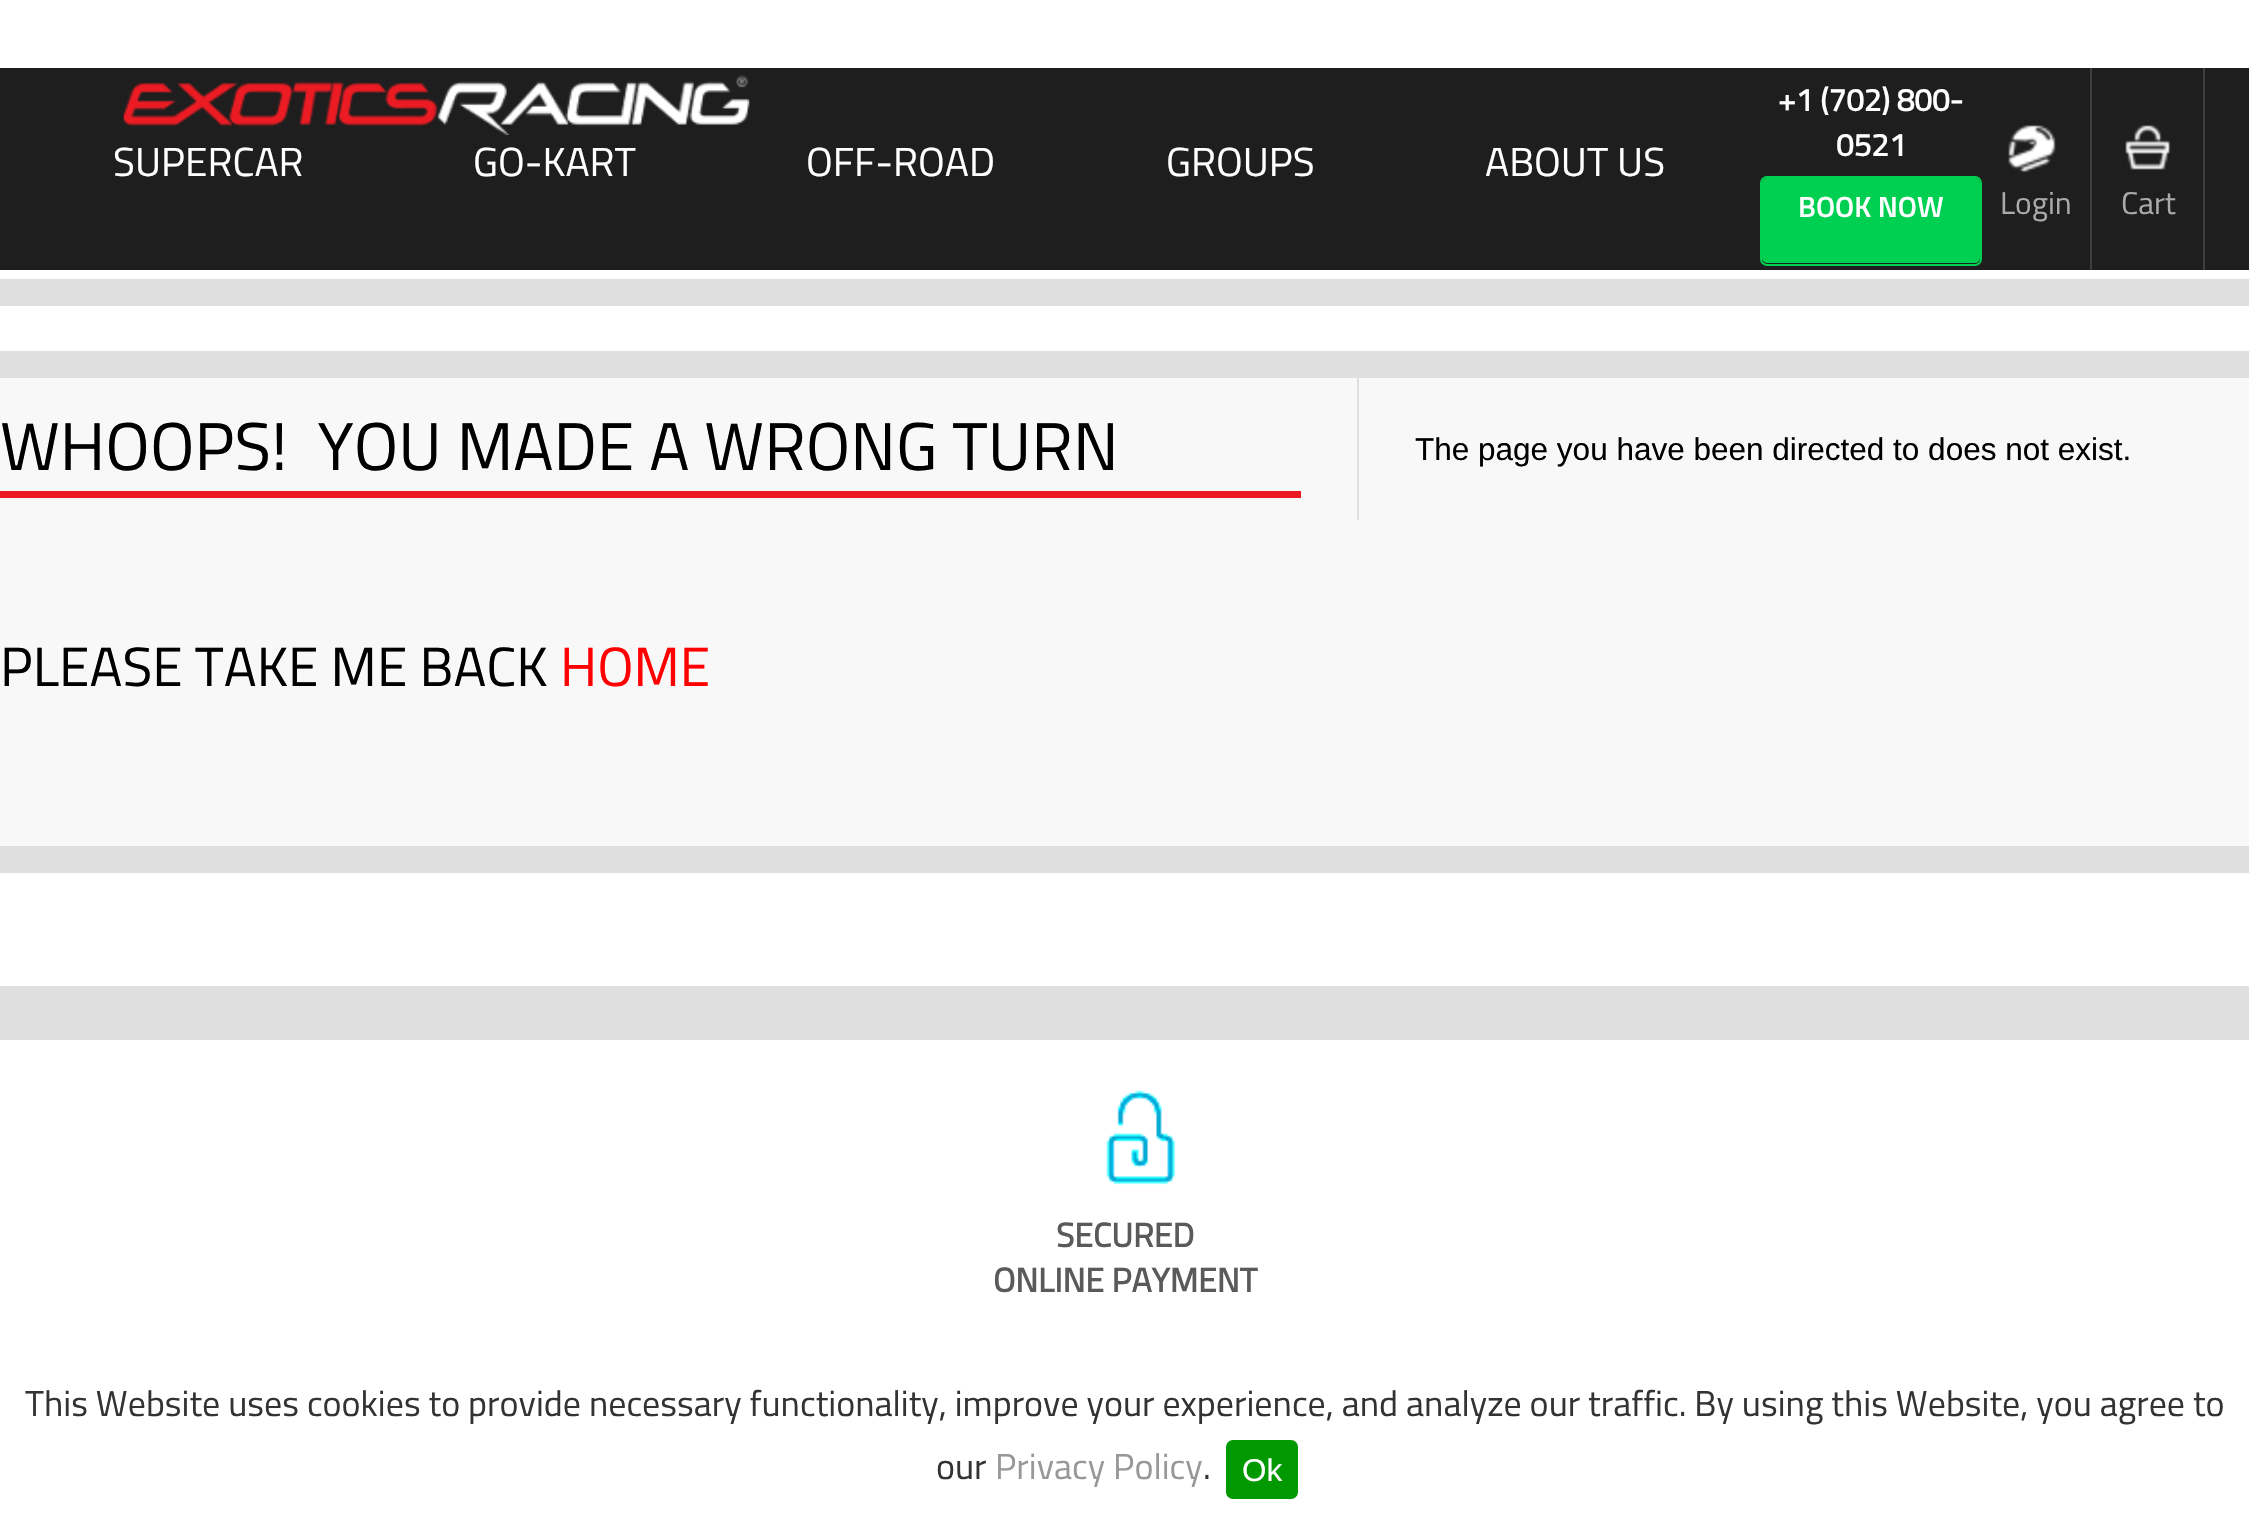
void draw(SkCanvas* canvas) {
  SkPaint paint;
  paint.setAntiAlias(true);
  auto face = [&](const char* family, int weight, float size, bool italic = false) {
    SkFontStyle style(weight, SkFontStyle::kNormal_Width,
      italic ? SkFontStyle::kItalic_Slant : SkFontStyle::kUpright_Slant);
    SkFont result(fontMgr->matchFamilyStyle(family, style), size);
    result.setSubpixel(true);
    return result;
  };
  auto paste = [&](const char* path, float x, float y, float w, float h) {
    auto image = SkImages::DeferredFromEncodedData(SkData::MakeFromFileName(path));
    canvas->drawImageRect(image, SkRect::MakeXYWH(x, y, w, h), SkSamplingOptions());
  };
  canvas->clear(0xffffffff);
  paint.setColor(0xff1e1e1e);
  canvas->drawRect(SkRect::MakeXYWH(0, 68, 2249, 202), paint);
  paste("img/1.png", 123, 75, 627, 60);
  paint.setStroke(true);
  paint.setStrokeWidth(2);
  paint.setColor(0xff00d052);
  canvas->drawRoundRect(SkRect::MakeXYWH(1761, 177, 220, 88), 6, 6, paint);
  paint.setStroke(false);
  canvas->drawRoundRect(SkRect::MakeXYWH(1762, 178, 218, 85), 5, 5, paint);
  paste("img/2.png", 2008, 125, 48, 48);
  paint.setColor(0xff3e3e3f);
  canvas->drawRect(SkRect::MakeXYWH(2090, 68, 2, 202), paint);
  paste("img/3.png", 2125, 125, 46, 45);
  {
    const struct { float x, y, w, h; SkColor color; } items[] = {
      {2203, 68, 2, 202, 0xff3e3e3f},
      {0, 279, 2249, 27, 0xffdfdfdf},
      {0, 986, 2249, 54, 0xffdfdfdf},
      {0, 378, 2249, 468, 0xfff8f8f8},
      {0, 351, 2249, 27, 0xffdfdfdf},
      {0, 846, 2249, 27, 0xffdfdfdf},
      {1357, 378, 2, 142, 0xffdfdfdf},
      {0, 491, 1301, 7, 0xffeb1a21},
    };
    for (auto [x, y, w, h, color] : items) {
      paint.setColor(color);
      canvas->drawRect(SkRect::MakeXYWH(x, y, w, h), paint);
    }
  }
  paste("img/4.png", 1106, 1090, 70, 95);
  paint.setColor(0xff009900);
  canvas->drawRoundRect(SkRect::MakeXYWH(1226, 1440, 72, 59), 7, 7, paint);
  auto f0 = face("Titillium Web", 700, 31.5f);
  paint.setColor(0xffffffff);
  canvas->drawString("+1 (702) 800-", 1778, 111, f0, paint);
  canvas->drawString("0521", 1836, 156, f0, paint);
  auto f1 = face("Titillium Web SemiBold", 600, 29.25f);
  canvas->drawString("BOOK NOW", 1798, 217, f1, paint);
  auto f2 = face("Titillium Web", 400, 40.5f);
  {
    const struct { const char* s; float x, y; } items[] = {
      {"SUPERCAR", 113, 176},
      {"GO-KART", 473, 176},
      {"OFF-ROAD", 806, 176},
      {"GROUPS", 1166, 176},
      {"ABOUT US", 1485, 176},
    };
    for (auto [s, x, y] : items) {
      canvas->drawString(s, x, y, f2, paint);
    }
  }
  auto f3 = face("Titillium Web", 400, 31.5f);
  paint.setColor(0xffaaaaaa);
  canvas->drawString("Login", 2000, 214, f3, paint);
  canvas->drawString("Cart", 2121, 214, f3, paint);
  auto f4 = face("Titillium Web", 400, 67.5f);
  paint.setColor(0xff000000);
  canvas->drawString("WHOOPS!  YOU MADE A WRONG TURN", 0, 470, f4, paint);
  auto f5 = face("Liberation Sans", 400, 31.5f);
  canvas->drawString("The page you have been directed to does not exist.", 1415, 460, f5, paint);
  auto f6 = face("Titillium Web", 400, 55.1f);
  canvas->drawString("PLEASE TAKE ME BACK", 0, 686, f6, paint);
  paint.setColor(0xffff0000);
  canvas->drawString("HOME", 560, 686, f6, paint);
  auto f7 = face("Titillium Web", 700, 33.75f);
  paint.setColor(0xff5a5a5a);
  canvas->drawString("SECURED", 1056, 1247, f7, paint);
  canvas->drawString("ONLINE PAYMENT", 993, 1292, f7, paint);
  auto f8 = face("Titillium Web", 400, 36);
  paint.setColor(0xff333333);
  canvas->drawString("This Website uses cookies to provide necessary functionality, improve your experience, and analyze our traffic. By using this Website, you agree to", 25, 1416, f8, paint);
  canvas->drawString("our", 936, 1479, f8, paint);
  paint.setColor(0xff989898);
  canvas->drawString("Privacy Policy", 995, 1479, f8, paint);
  paint.setColor(0xff333333);
  canvas->drawString(".", 1203, 1479, f8, paint);
  paint.setColor(0xffffffff);
  canvas->drawString("Ok", 1242, 1481, f5, paint);
}
